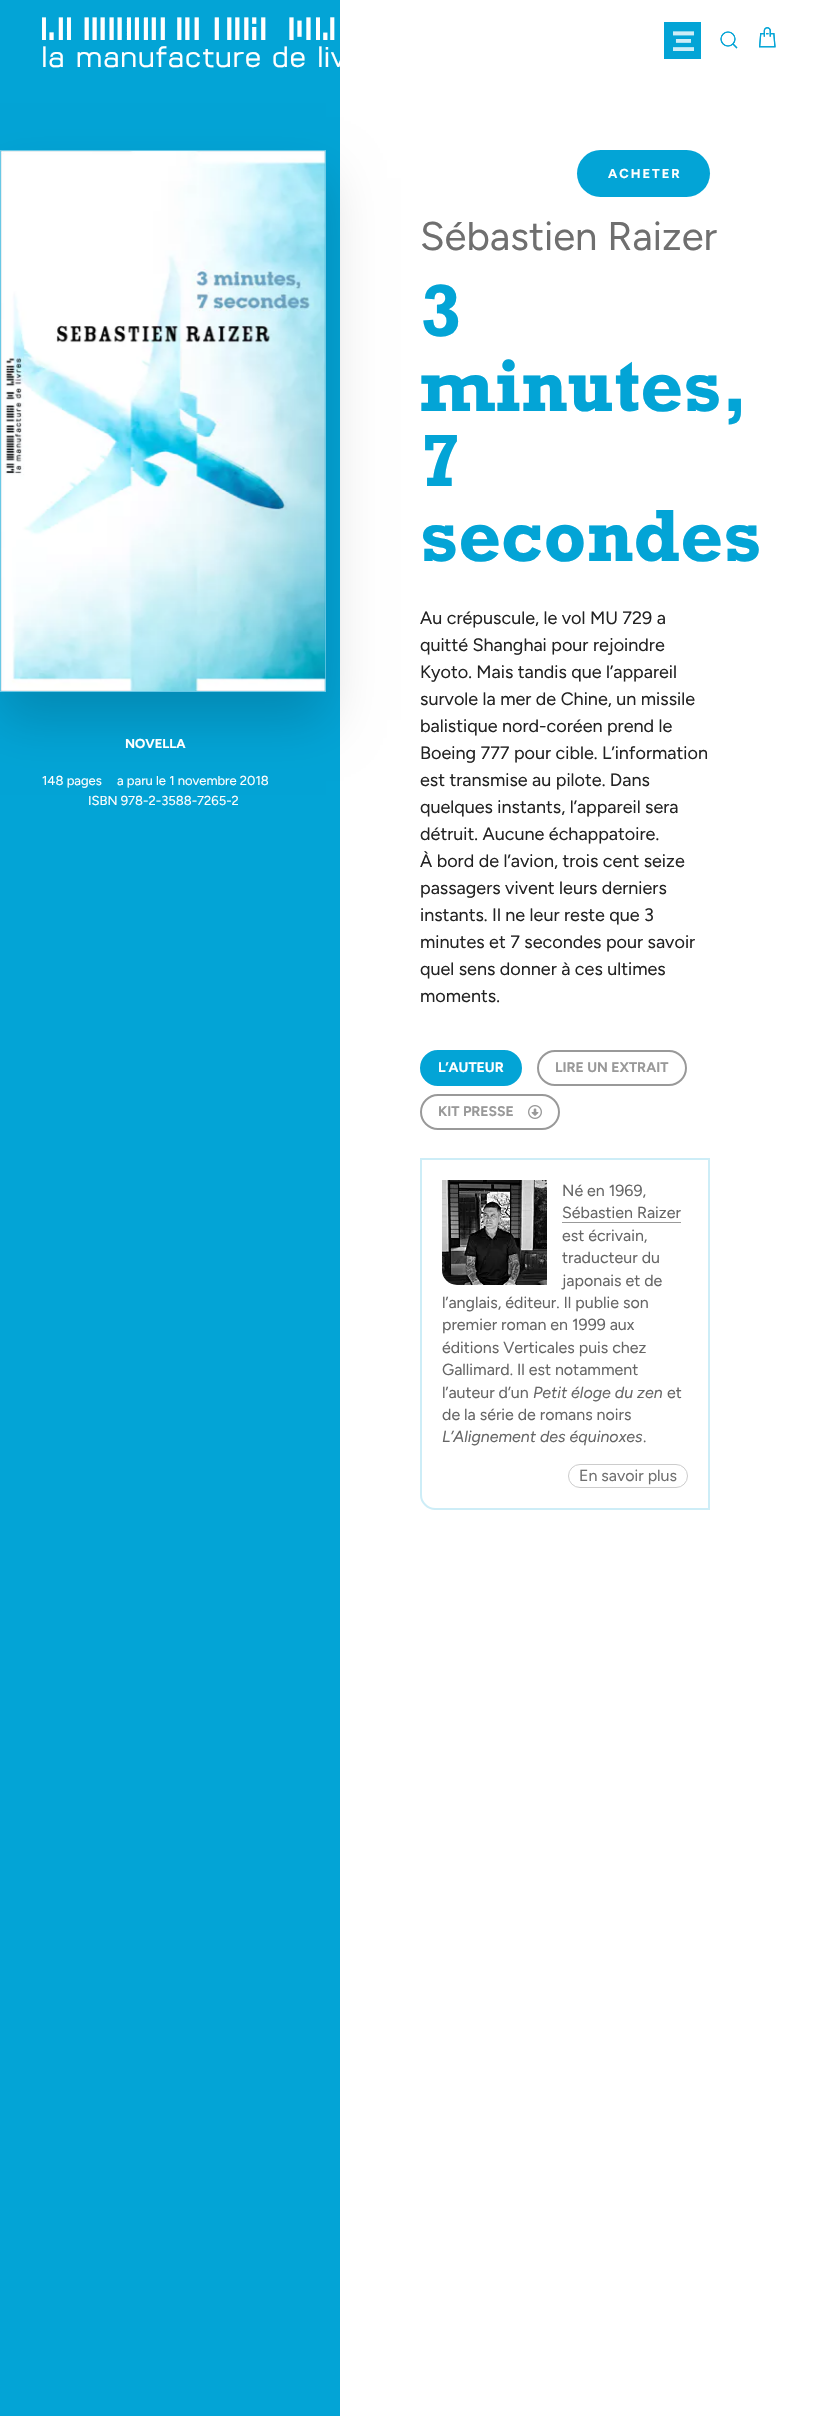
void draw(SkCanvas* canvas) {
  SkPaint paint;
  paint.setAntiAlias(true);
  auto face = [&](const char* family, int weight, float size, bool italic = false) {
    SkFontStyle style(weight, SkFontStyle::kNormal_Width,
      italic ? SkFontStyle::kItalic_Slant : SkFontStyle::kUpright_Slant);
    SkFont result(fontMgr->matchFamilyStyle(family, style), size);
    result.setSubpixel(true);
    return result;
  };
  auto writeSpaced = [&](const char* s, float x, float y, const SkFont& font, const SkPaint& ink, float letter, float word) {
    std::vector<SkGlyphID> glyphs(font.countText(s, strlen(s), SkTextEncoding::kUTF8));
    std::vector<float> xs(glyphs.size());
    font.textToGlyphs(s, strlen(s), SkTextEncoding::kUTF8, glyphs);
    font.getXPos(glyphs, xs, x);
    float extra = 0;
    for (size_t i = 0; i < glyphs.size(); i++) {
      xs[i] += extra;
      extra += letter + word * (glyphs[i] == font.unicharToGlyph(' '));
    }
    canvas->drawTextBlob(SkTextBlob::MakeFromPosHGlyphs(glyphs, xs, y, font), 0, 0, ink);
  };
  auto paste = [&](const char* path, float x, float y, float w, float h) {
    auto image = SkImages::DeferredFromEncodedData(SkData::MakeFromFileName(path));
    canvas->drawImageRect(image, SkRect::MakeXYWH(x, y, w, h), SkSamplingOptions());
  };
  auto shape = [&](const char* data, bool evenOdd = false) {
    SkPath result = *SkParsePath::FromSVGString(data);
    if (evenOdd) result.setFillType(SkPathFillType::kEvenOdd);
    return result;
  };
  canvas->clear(0xffffffff);
  paint.setStroke(true);
  paint.setStrokeWidth(1.1f);
  paint.setColor(0xff03a4d6);
  canvas->drawCircle(728, 39, 7, paint);
  canvas->drawPath(shape("M733 44L737 48Z"), paint);
  paste("img/1.png", 759, 27, 17, 21);
  paint.setStroke(false);
  canvas->drawRect(SkRect::MakeXYWH(664, 22, 37, 37), paint);
  paint.setStroke(true);
  canvas->drawCircle(728, 39, 7, paint);
  canvas->drawPath(shape("M733 44L737 48Z"), paint);
  paste("img/2.png", 759, 27, 17, 21);
  paint.setStroke(false);
  canvas->drawRect(SkRect::MakeXYWH(0, 0, 340, 2416), paint);
  paint.setColor(0x29000000);
  paint.setMaskFilter(SkMaskFilter::MakeBlur(kNormal_SkBlurStyle, 25));
  canvas->drawRect(SkRect::MakeXYWH(0, 178, 326, 542), paint);
  paint.setMaskFilter(nullptr);
  paint.setStroke(true);
  paint.setStrokeWidth(1);
  paint.setColor(0xff68c8e6);
  canvas->drawRect(SkRect::MakeXYWH(0.5f, 150.5f, 325, 541), paint);
  paste("img/3.png", 1, 151, 325, 541);
  paint.setStroke(false);
  paint.setColor(0xff03a4d6);
  canvas->drawRoundRect(SkRect::MakeXYWH(577, 150, 133, 47), 23.5f, 23.5f, paint);
  canvas->drawRoundRect(SkRect::MakeXYWH(421, 1051, 100, 34), 17, 17, paint);
  paint.setStroke(true);
  paint.setStrokeWidth(2);
  canvas->drawRoundRect(SkRect::MakeXYWH(421, 1051, 100, 34), 17, 17, paint);
  paint.setColor(0xff999999);
  canvas->drawRoundRect(SkRect::MakeXYWH(538, 1051, 148, 34), 17, 17, paint);
  canvas->drawRoundRect(SkRect::MakeXYWH(421, 1095, 138, 34), 17, 17, paint);
  paste("img/4.png", 528, 1105, 14, 14);
  paint.setColor(0xffcdedf7);
  canvas->drawPath(shape("M421 1159H709V1509H435C427.5 1509 421 1502.5 421 1495Z"), paint);
  paste("img/5.png", 442, 1180, 105, 105);
  paint.setStroke(false);
  paint.setColor(0xff999999);
  canvas->drawRect(SkRect::MakeXYWH(562, 1222, 119, 1), paint);
  paint.setStroke(true);
  paint.setStrokeWidth(1);
  paint.setColor(0xffcccccc);
  canvas->drawRoundRect(SkRect::MakeXYWH(568.5f, 1464.5f, 119, 23), 11.5f, 11.5f, paint);
  auto f0 = face("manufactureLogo", 400, 32.25f);
  paint.setStroke(false);
  paint.setColor(0xffffffff);
  writeSpaced("0", 47, 40, f0, paint, -27, 0);
  writeSpaced("li", 316, 40, f0, paint, -1, 0);
  auto f1 = face("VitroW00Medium", 500, 29.4f);
  canvas->drawString("la manufacture de liv", 41, 67, f1, paint);
  auto f2 = face("manufactureLogo", 400, 28);
  paint.setColor(0xffcdedf7);
  canvas->drawString("Z", 673, 51, f2, paint);
  auto f3 = face("Figtree", 700, 13);
  paint.setColor(0xffffffff);
  canvas->drawString("NOVELLA", 125, 748, f3, paint);
  auto f4 = face("Figtree", 400, 13);
  {
    const struct { const char* s; float x, y; } items[] = {
      {"148 pages", 42, 785},
      {"a paru le 1 novembre 2018", 117, 785},
      {"ISBN 978-2-3588-7265-2", 88, 805},
    };
    for (auto [s, x, y] : items) {
      canvas->drawString(s, x, y, f4, paint);
    }
  }
  writeSpaced("ACHETER", 608, 178, f3, paint, 2, 0);
  auto f5 = face("Figtree", 400, 40);
  paint.setColor(0xff6f6f6f);
  canvas->drawString("Sébastien Raizer", 420, 250, f5, paint);
  auto f6 = face("Rockwell", 700, 75);
  paint.setColor(0xff03a4d6);
  {
    const struct { const char* s; float x, y; } items[] = {
      {"3", 420, 336},
      {"minutes,", 420, 411},
      {"7", 420, 486},
      {"secondes", 420, 561},
    };
    for (auto [s, x, y] : items) {
      canvas->drawString(s, x, y, f6, paint);
    }
  }
  auto f7 = face("Figtree", 400, 18);
  paint.setColor(0xff232323);
  {
    const struct { const char* s; float x, y; } items[] = {
      {"Au crépuscule, le vol MU 729 a", 420, 624},
      {"quitté Shanghai pour rejoindre", 420, 651},
      {"Kyoto. Mais tandis que l’appareil", 420, 678},
      {"survole la mer de Chine, un missile", 420, 705},
      {"balistique nord-coréen prend le", 420, 732},
      {"Boeing 777 pour cible. L’information", 420, 759},
      {"est transmise au pilote. Dans", 420, 786},
      {"quelques instants, l’appareil sera", 420, 813},
      {"détruit. Aucune échappatoire.", 420, 840},
      {"À bord de l’avion, trois cent seize", 420, 867},
      {"passagers vivent leurs derniers", 420, 894},
      {"instants. Il ne leur reste que 3", 420, 921},
      {"minutes et 7 secondes pour savoir", 420, 948},
      {"quel sens donner à ces ultimes", 420, 975},
      {"moments.", 420, 1002},
    };
    for (auto [s, x, y] : items) {
      canvas->drawString(s, x, y, f7, paint);
    }
  }
  auto f8 = face("Figtree", 700, 14);
  paint.setColor(0xffffffff);
  canvas->drawString("L’AUTEUR", 438, 1072, f8, paint);
  paint.setColor(0xff999999);
  canvas->drawString("LIRE UN EXTRAIT", 555, 1072, f8, paint);
  canvas->drawString("KIT PRESSE", 438, 1116, f8, paint);
  auto f9 = face("Figtree", 400, 16);
  paint.setColor(0xff666666);
  {
    const struct { const char* s; float x, y; } items[] = {
      {"Né en 1969,", 562, 1196},
      {"Sébastien Raizer", 562, 1218},
      {"est écrivain,", 562, 1241},
      {"traducteur du", 562, 1263},
      {"japonais et de", 562, 1286},
      {"l’anglais, éditeur. Il publie son", 442, 1308},
      {"premier roman en 1999 aux", 442, 1330},
      {"éditions Verticales puis chez", 442, 1353},
      {"Gallimard. Il est notamment", 442, 1375},
      {"l’auteur d’un", 442, 1398},
    };
    for (auto [s, x, y] : items) {
      canvas->drawString(s, x, y, f9, paint);
    }
  }
  auto f10 = face("Figtree", 400, 16, true);
  canvas->drawString("Petit éloge du zen", 533, 1398, f10, paint);
  canvas->drawString("et", 667, 1398, f9, paint);
  canvas->drawString("de la série de romans noirs", 442, 1420, f9, paint);
  canvas->drawString("L’Alignement des équinoxes", 442, 1442, f10, paint);
  canvas->drawString(".", 643, 1442, f9, paint);
  paint.setColor(0xff6f6f6f);
  canvas->drawString("En savoir plus", 579, 1481, f9, paint);
}
